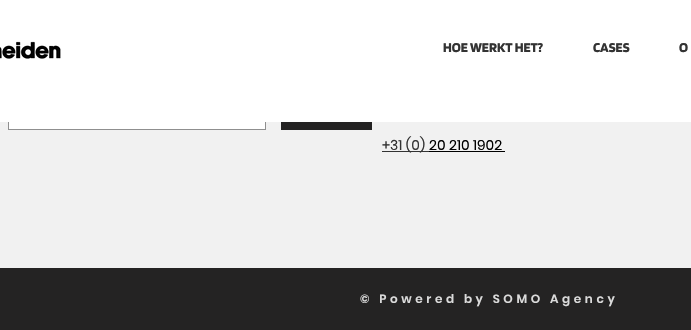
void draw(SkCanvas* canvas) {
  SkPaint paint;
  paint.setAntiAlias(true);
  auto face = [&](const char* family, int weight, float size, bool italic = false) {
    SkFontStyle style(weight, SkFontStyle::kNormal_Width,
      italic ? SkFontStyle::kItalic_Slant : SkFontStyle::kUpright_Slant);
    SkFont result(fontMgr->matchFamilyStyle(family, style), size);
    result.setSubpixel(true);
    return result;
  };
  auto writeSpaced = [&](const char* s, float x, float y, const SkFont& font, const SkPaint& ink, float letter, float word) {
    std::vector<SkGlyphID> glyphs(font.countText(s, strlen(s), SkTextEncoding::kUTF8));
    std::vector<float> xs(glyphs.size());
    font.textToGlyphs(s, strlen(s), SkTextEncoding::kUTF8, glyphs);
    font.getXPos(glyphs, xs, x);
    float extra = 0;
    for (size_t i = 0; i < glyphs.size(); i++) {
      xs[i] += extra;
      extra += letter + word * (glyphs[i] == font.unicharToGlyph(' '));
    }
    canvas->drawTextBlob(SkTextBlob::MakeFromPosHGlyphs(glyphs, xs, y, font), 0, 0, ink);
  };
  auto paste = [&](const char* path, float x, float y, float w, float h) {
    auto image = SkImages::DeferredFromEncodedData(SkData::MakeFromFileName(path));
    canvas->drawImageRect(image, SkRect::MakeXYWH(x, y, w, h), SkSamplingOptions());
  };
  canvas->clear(0xff242323);
  paint.setColor(0xfff1f1f1);
  canvas->drawRect(SkRect::MakeXYWH(0, 122, 691, 146), paint);
  paint.setColor(0xffffffff);
  canvas->drawRect(SkRect::MakeXYWH(9, 122, 256, 7), paint);
  paint.setStroke(true);
  paint.setStrokeWidth(1);
  paint.setColor(0xff8f8f8f);
  canvas->drawRect(SkRect::MakeXYWH(8.5f, 88.5f, 257, 41), paint);
  paint.setStroke(false);
  paint.setColor(0xffffffff);
  canvas->drawRect(SkRect::MakeXYWH(0, 0, 691, 122), paint);
  paste("img/1.png", 0, 41, 61, 18);
  {
    const struct { float x, y, w, h; SkColor color; } items[] = {
      {281, 122, 91, 8, 0xff242323},
      {382, 151, 47, 1, 0xff333333},
      {429, 151, 76, 1, 0xff000000},
    };
    for (auto [x, y, w, h, color] : items) {
      paint.setColor(color);
      canvas->drawRect(SkRect::MakeXYWH(x, y, w, h), paint);
    }
  }
  auto f0 = face("Blinker", 700, 14);
  paint.setColor(0xff333333);
  {
    const struct { const char* s; float x, y; } items[] = {
      {"HOE WERKT HET?", 443, 52},
      {"CASES", 593, 52},
      {"O", 679, 52},
    };
    for (auto [s, x, y] : items) {
      canvas->drawString(s, x, y, f0, paint);
    }
  }
  auto f1 = face("Poppins", 400, 14);
  canvas->drawString("+31 (0)", 382, 150, f1, paint);
  paint.setColor(0xff000000);
  canvas->drawString("20 210 1902", 429, 150, f1, paint);
  auto f2 = face("Poppins", 600, 12);
  paint.setColor(0xffdbdbdb);
  writeSpaced("© Powered by SOMO Agency", 360, 303, f2, paint, 3.6f, 0);
}
